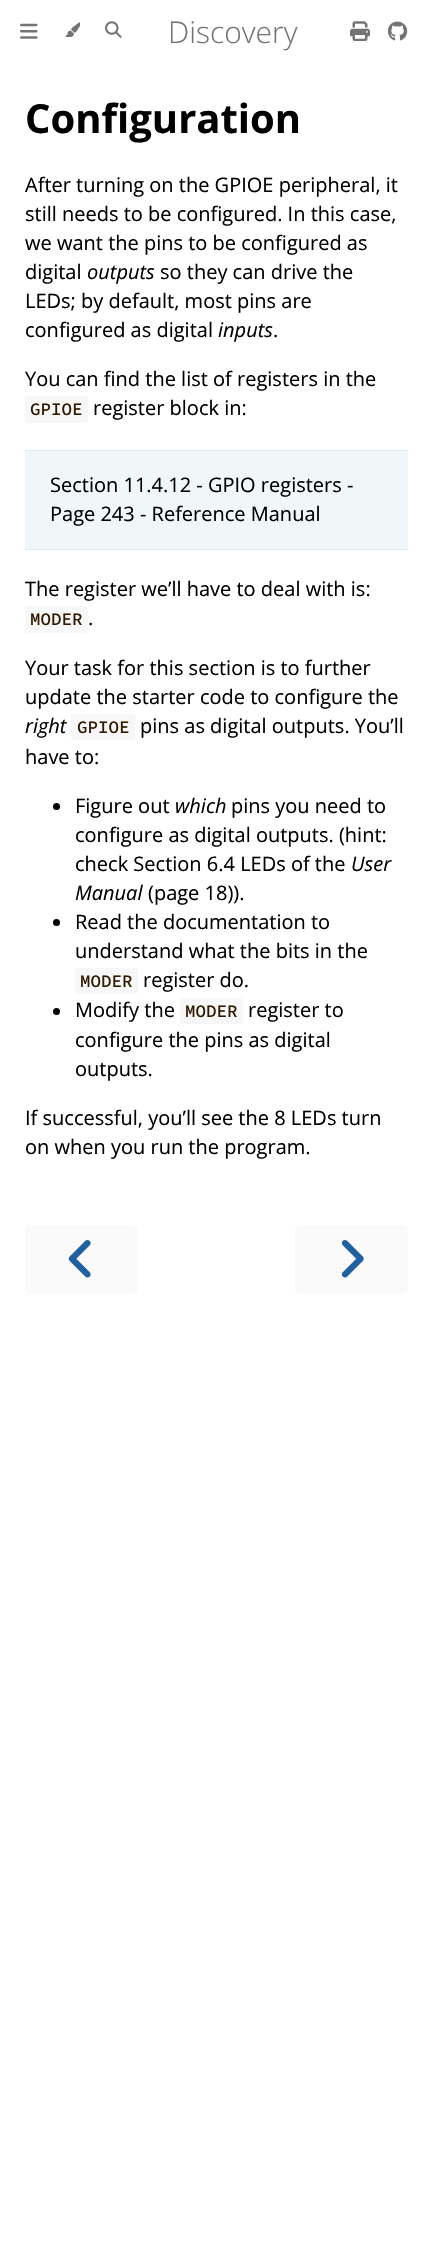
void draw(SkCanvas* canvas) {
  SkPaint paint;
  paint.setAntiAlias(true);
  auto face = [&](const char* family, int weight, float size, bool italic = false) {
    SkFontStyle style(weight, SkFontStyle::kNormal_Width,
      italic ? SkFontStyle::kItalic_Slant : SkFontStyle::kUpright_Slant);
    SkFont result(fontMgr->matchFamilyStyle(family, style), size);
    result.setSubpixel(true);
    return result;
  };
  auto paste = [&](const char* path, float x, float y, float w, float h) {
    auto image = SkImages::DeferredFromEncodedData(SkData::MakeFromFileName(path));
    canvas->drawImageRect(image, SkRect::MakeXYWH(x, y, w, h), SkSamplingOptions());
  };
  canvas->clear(0xffffffff);
  paste("img/1.png", 20, 23, 18, 16);
  paste("img/2.png", 65, 22, 15, 15);
  paste("img/3.png", 105, 21, 17, 17);
  paste("img/4.png", 350, 21, 20, 20);
  paste("img/5.png", 388, 21, 20, 20);
  paint.setColor(0xfff6f7f6);
  canvas->drawRoundRect(SkRect::MakeXYWH(25, 396, 63, 27), 4, 4, paint);
  {
    const struct { float x, y, w, h; SkColor color; } items[] = {
      {25, 451, 383, 98, 0xfff1f6f9},
      {25, 450, 383, 1, 0xffe0ecf1},
      {25, 549, 383, 1, 0xffe0ecf1},
    };
    for (auto [x, y, w, h, color] : items) {
      paint.setColor(color);
      canvas->drawRect(SkRect::MakeXYWH(x, y, w, h), paint);
    }
  }
  paint.setColor(0xfff6f7f6);
  canvas->drawRoundRect(SkRect::MakeXYWH(25, 606, 63, 27), 4, 4, paint);
  canvas->drawRoundRect(SkRect::MakeXYWH(71, 714, 64, 26), 4, 4, paint);
  paint.setColor(0xff000000);
  canvas->drawCircle(56.5f, 806.5f, 3.5f, paint);
  canvas->drawCircle(56.5f, 922.5f, 3.5f, paint);
  paint.setColor(0xfff6f7f6);
  canvas->drawRoundRect(SkRect::MakeXYWH(75, 968, 63, 26), 4, 4, paint);
  paint.setColor(0xff000000);
  canvas->drawCircle(56.5f, 1011.5f, 3.5f, paint);
  paint.setColor(0xfff6f7f6);
  canvas->drawRoundRect(SkRect::MakeXYWH(180, 998, 63, 26), 4, 4, paint);
  paint.setColor(0xfffafafa);
  canvas->drawRoundRect(SkRect::MakeXYWH(25, 1225, 113, 69), 6, 6, paint);
  paste("img/6.png", 68, 1240, 23, 38);
  canvas->drawRoundRect(SkRect::MakeXYWH(295, 1225, 113, 69), 6, 6, paint);
  paste("img/7.png", 341, 1240, 23, 38);
  auto f0 = face("Open Sans", 300, 30);
  paint.setColor(0xff747474);
  canvas->drawString("Discovery", 168, 43, f0, paint);
  auto f1 = face("Open Sans", 700, 40);
  paint.setColor(0xff000000);
  canvas->drawString("Configuration", 25, 133, f1, paint);
  auto f2 = face("Open Sans", 400, 20);
  {
    const struct { const char* s; float x, y; } items[] = {
      {"After turning on the GPIOE peripheral, it", 25, 192},
      {"still needs to be configured. In this case,", 25, 221},
      {"we want the pins to be configured as", 25, 250},
      {"digital", 25, 279},
    };
    for (auto [s, x, y] : items) {
      canvas->drawString(s, x, y, f2, paint);
    }
  }
  auto f3 = face("Open Sans", 400, 20, true);
  canvas->drawString("outputs", 87, 279, f3, paint);
  {
    const struct { const char* s; float x, y; } items[] = {
      {"so they can drive the", 160, 279},
      {"LEDs; by default, most pins are", 25, 308},
      {"configured as digital", 25, 337},
    };
    for (auto [s, x, y] : items) {
      canvas->drawString(s, x, y, f2, paint);
    }
  }
  canvas->drawString("inputs", 218, 337, f3, paint);
  canvas->drawString(".", 273, 337, f2, paint);
  canvas->drawString("You can find the list of registers in the", 25, 386, f2, paint);
  auto f4 = face("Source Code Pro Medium", 500, 17.5f);
  paint.setColor(0xff301900);
  canvas->drawString("GPIOE", 30, 415, f4, paint);
  paint.setColor(0xff000000);
  {
    const struct { const char* s; float x, y; } items[] = {
      {"register block in:", 93, 415},
      {"Section 11.4.12 - GPIO registers -", 50, 492},
      {"Page 243 - Reference Manual", 50, 521},
      {"The register we’ll have to deal with is:", 25, 596},
    };
    for (auto [s, x, y] : items) {
      canvas->drawString(s, x, y, f2, paint);
    }
  }
  paint.setColor(0xff301900);
  canvas->drawString("MODER", 30, 625, f4, paint);
  paint.setColor(0xff000000);
  {
    const struct { const char* s; float x, y; } items[] = {
      {".", 88, 625},
      {"Your task for this section is to further", 25, 675},
      {"update the starter code to configure the", 25, 704},
    };
    for (auto [s, x, y] : items) {
      canvas->drawString(s, x, y, f2, paint);
    }
  }
  canvas->drawString("right", 25, 733, f3, paint);
  paint.setColor(0xff301900);
  canvas->drawString("GPIOE", 77, 733, f4, paint);
  paint.setColor(0xff000000);
  {
    const struct { const char* s; float x, y; } items[] = {
      {"pins as digital outputs. You’ll", 140, 733},
      {"have to:", 25, 764},
      {"Figure out", 75, 813},
    };
    for (auto [s, x, y] : items) {
      canvas->drawString(s, x, y, f2, paint);
    }
  }
  canvas->drawString("which", 175, 813, f3, paint);
  {
    const struct { const char* s; float x, y; } items[] = {
      {"pins you need to", 231, 813},
      {"configure as digital outputs. (hint:", 75, 842},
      {"check Section 6.4 LEDs of the", 75, 871},
    };
    for (auto [s, x, y] : items) {
      canvas->drawString(s, x, y, f2, paint);
    }
  }
  canvas->drawString("User", 351, 871, f3, paint);
  canvas->drawString("Manual", 75, 900, f3, paint);
  {
    const struct { const char* s; float x, y; } items[] = {
      {"(page 18)).", 148, 900},
      {"Read the documentation to", 75, 929},
      {"understand what the bits in the", 75, 958},
    };
    for (auto [s, x, y] : items) {
      canvas->drawString(s, x, y, f2, paint);
    }
  }
  paint.setColor(0xff301900);
  canvas->drawString("MODER", 80, 987, f4, paint);
  paint.setColor(0xff000000);
  canvas->drawString("register do.", 143, 987, f2, paint);
  canvas->drawString("Modify the", 75, 1017, f2, paint);
  paint.setColor(0xff301900);
  canvas->drawString("MODER", 185, 1017, f4, paint);
  paint.setColor(0xff000000);
  {
    const struct { const char* s; float x, y; } items[] = {
      {"register to", 248, 1017},
      {"configure the pins as digital", 75, 1047},
      {"outputs.", 75, 1076},
      {"If successful, you’ll see the 8 LEDs turn", 25, 1125},
      {"on when you run the program.", 25, 1154},
    };
    for (auto [s, x, y] : items) {
      canvas->drawString(s, x, y, f2, paint);
    }
  }
}
